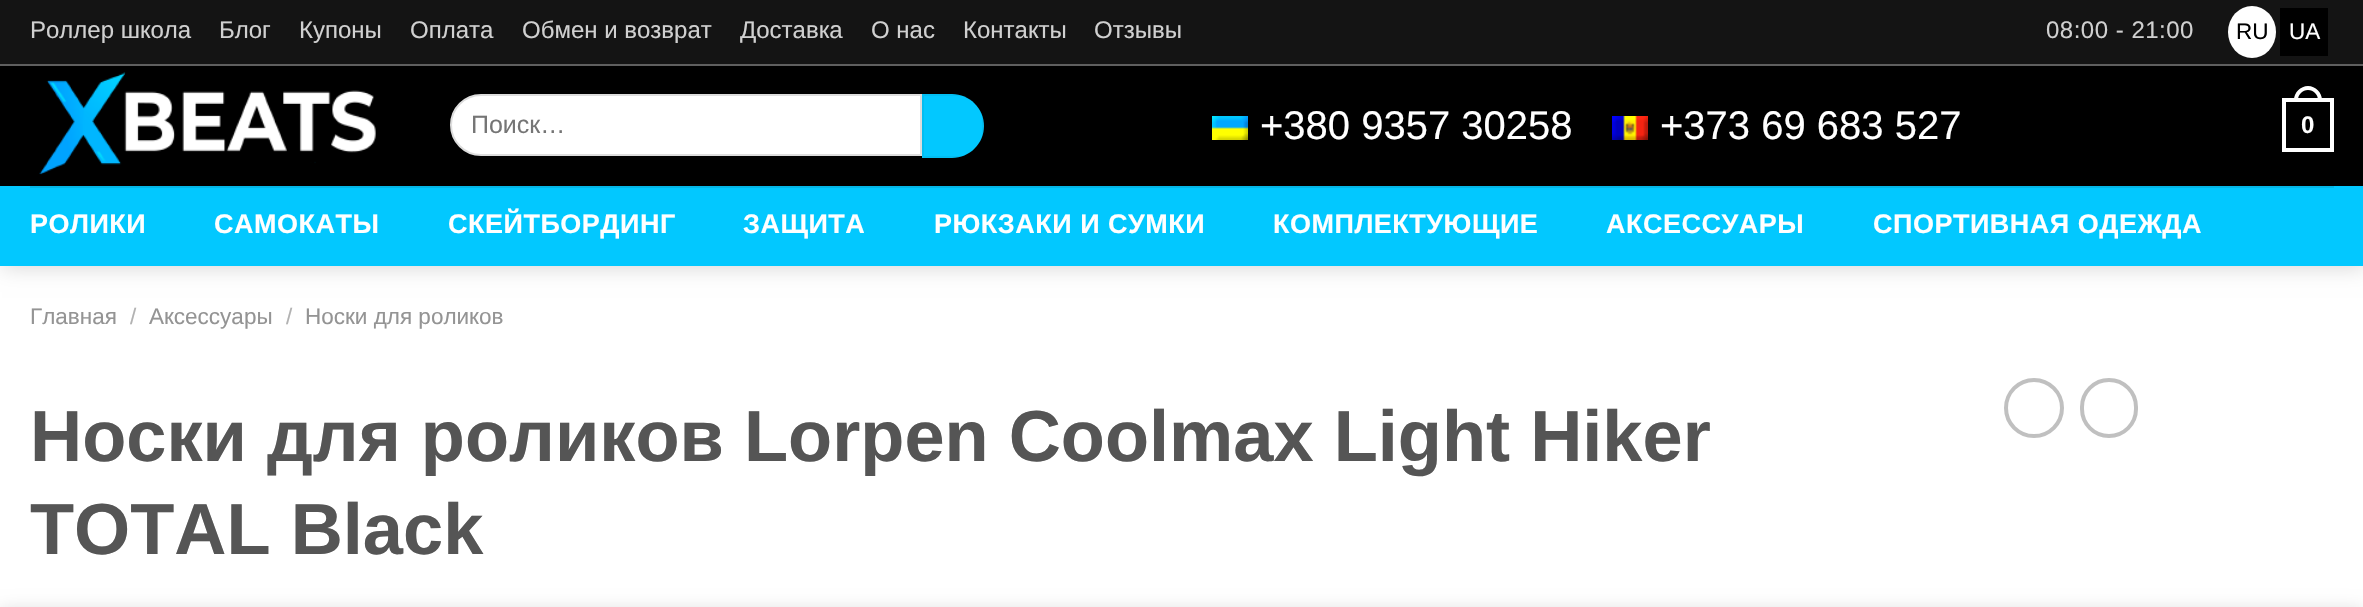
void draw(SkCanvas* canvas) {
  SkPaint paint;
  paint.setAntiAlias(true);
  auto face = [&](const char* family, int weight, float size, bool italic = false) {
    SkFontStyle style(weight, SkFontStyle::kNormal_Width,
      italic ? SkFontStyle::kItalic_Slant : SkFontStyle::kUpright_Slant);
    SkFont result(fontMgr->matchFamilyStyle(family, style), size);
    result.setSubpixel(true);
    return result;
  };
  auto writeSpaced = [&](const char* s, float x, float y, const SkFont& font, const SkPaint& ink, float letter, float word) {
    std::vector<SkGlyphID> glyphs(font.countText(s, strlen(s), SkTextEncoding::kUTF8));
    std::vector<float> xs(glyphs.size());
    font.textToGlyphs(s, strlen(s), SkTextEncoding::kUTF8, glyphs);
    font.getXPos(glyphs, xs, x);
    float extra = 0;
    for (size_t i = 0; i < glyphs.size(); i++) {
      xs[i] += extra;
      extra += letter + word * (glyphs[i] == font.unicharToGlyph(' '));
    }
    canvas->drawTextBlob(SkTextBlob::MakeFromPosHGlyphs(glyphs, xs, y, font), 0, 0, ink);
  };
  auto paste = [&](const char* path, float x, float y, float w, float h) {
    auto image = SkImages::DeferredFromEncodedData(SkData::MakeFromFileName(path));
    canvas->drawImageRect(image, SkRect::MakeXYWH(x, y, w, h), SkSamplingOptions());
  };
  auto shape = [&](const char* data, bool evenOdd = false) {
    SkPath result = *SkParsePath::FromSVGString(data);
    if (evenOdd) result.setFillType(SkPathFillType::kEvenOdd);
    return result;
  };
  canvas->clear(0xffffffff);
  paint.setColor(0x26000000);
  paint.setMaskFilter(SkMaskFilter::MakeBlur(kNormal_SkBlurStyle, 10));
  canvas->drawRect(SkRect::MakeXYWH(2, 2, 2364, 266), paint);
  paint.setMaskFilter(nullptr);
  paint.setColor(0xff141414);
  canvas->drawRect(SkRect::MakeXYWH(0, 0, 2363, 64), paint);
  paint.setColor(0xff5f5f5f);
  canvas->drawRect(SkRect::MakeXYWH(0, 64, 2363, 2), paint);
  paint.setColor(0xffffffff);
  canvas->drawOval(SkRect::MakeXYWH(2228, 6, 48, 52), paint);
  paint.setColor(0xff000000);
  canvas->drawRect(SkRect::MakeXYWH(2280, 8, 48, 48), paint);
  canvas->drawRect(SkRect::MakeXYWH(0, 66, 2363, 120), paint);
  paste("img/1.png", 39, 72, 337, 103);
  paint.setColor(0xffffffff);
  canvas->drawPath(shape("M481 95H921V155H481C464.5 155 451 141.5 451 125C451 108.5 464.5 95 481 95Z"), paint);
  paint.setStroke(true);
  paint.setStrokeWidth(2);
  paint.setColor(0xffdddddd);
  canvas->drawPath(shape("M481 95H921V155H481C464.5 155 451 141.5 451 125C451 108.5 464.5 95 481 95Z"), paint);
  paint.setStroke(false);
  paint.setColor(0xff02c8ff);
  canvas->drawPath(shape("M922 94H952C969.5 94 984 108.5 984 126C984 143.5 969.5 158 952 158H922Z"), paint);
  paint.setStroke(true);
  paint.setColor(0x0d000000);
  canvas->drawRect(SkRect::MakeXYWH(923, 95, 60, 62), paint);
  paste("img/2.png", 1212, 116, 36, 24);
  paste("img/3.png", 1612, 116, 36, 24);
  paint.setStrokeWidth(4);
  paint.setColor(0xffffffff);
  canvas->drawRect(SkRect::MakeXYWH(2284, 100, 48, 50), paint);
  paint.setStroke(false);
  canvas->drawPath(shape("M2308 86C2315.5 86 2322 92.5 2322 100V102H2294V100C2294 92.5 2300.5 86 2308 86ZM2308 90C2313.5 90 2318 94.5 2318 100V102H2298V100C2298 94.5 2302.5 90 2308 90Z", true), paint);
  paint.setColor(0xff02c8ff);
  canvas->drawRect(SkRect::MakeXYWH(0, 186, 2363, 80), paint);
  paint.setColor(0xff04b6e7);
  canvas->drawRect(SkRect::MakeXYWH(30, 186, 2304, 2), paint);
  paint.setStroke(true);
  paint.setColor(0xffc0c0c0);
  canvas->drawCircle(2034, 408, 28, paint);
  canvas->drawRoundRect(SkRect::MakeXYWH(2082, 380, 54, 56), 27, 27, paint);
  paint.setStroke(false);
  paint.setColor(0x24000000);
  paint.setMaskFilter(SkMaskFilter::MakeBlur(kNormal_SkBlurStyle, 9));
  canvas->drawRect(SkRect::MakeXYWH(0, 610, 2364, 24), paint);
  paint.setMaskFilter(nullptr);
  auto f0 = face("Liberation Sans", 400, 24);
  paint.setColor(0xffd0d0d0);
  {
    const struct { const char* s; float x, y; } items[] = {
      {"Роллер школа", 30, 38},
      {"Блог", 219, 38},
      {"Купоны", 299, 38},
      {"Оплата", 410, 38},
      {"Обмен и возврат", 522, 38},
      {"Доставка", 740, 38},
      {"О нас", 871, 38},
      {"Контакты", 963, 38},
      {"Отзывы", 1094, 38},
    };
    for (auto [s, x, y] : items) {
      canvas->drawString(s, x, y, f0, paint);
    }
  }
  writeSpaced("08:00 - 21:00", 2046, 38, f0, paint, 0.5f, 0);
  auto f1 = face("Liberation Sans", 400, 22.5f);
  paint.setColor(0xff000000);
  canvas->drawString("RU", 2236, 39, f1, paint);
  paint.setColor(0xffffffff);
  canvas->drawString("UA", 2289, 39, f1, paint);
  auto f2 = face("Liberation Sans", 400, 25);
  paint.setColor(0xff757575);
  canvas->drawString("Поиск…", 471, 133, f2, paint);
  auto f3 = face("Liberation Sans", 400, 40);
  paint.setColor(0xffffffff);
  canvas->drawString("+380 9357 30258", 1260, 139, f3, paint);
  canvas->drawString("+373 69 683 527", 1660, 139, f3, paint);
  auto f4 = face("Liberation Sans", 700, 24);
  canvas->drawString("0", 2301, 133, f4, paint);
  auto f5 = face("Liberation Sans", 700, 27);
  {
    const struct { const char* s; float x, y; } items[] = {
      {"РОЛИКИ", 30, 233},
      {"САМОКАТЫ", 214, 233},
      {"СКЕЙТБОРДИНГ", 448, 233},
      {"ЗАЩИТА", 743, 233},
      {"РЮКЗАКИ И СУМКИ", 934, 233},
      {"КОМПЛЕКТУЮЩИЕ", 1273, 233},
      {"АКСЕССУАРЫ", 1606, 233},
      {"СПОРТИВНАЯ ОДЕЖДА", 1873, 233},
    };
    for (auto [s, x, y] : items) {
      writeSpaced(s, x, y, f5, paint, 0.5f, 0);
    }
  }
  paint.setColor(0xff949494);
  canvas->drawString("Главная", 30, 324, f1, paint);
  paint.setColor(0xffb2b2b2);
  canvas->drawString("/", 130, 324, f1, paint);
  paint.setColor(0xff949494);
  canvas->drawString("Аксессуары", 149, 324, f1, paint);
  paint.setColor(0xffb2b2b2);
  canvas->drawString("/", 286, 324, f1, paint);
  paint.setColor(0xff949494);
  canvas->drawString("Носки для роликов", 305, 324, f1, paint);
  auto f6 = face("Liberation Sans", 700, 72.2f);
  paint.setColor(0xff555555);
  canvas->drawString("Носки для роликов Lorpen Coolmax Light Hiker", 30, 461, f6, paint);
  canvas->drawString("TOTAL Black", 30, 554, f6, paint);
}
